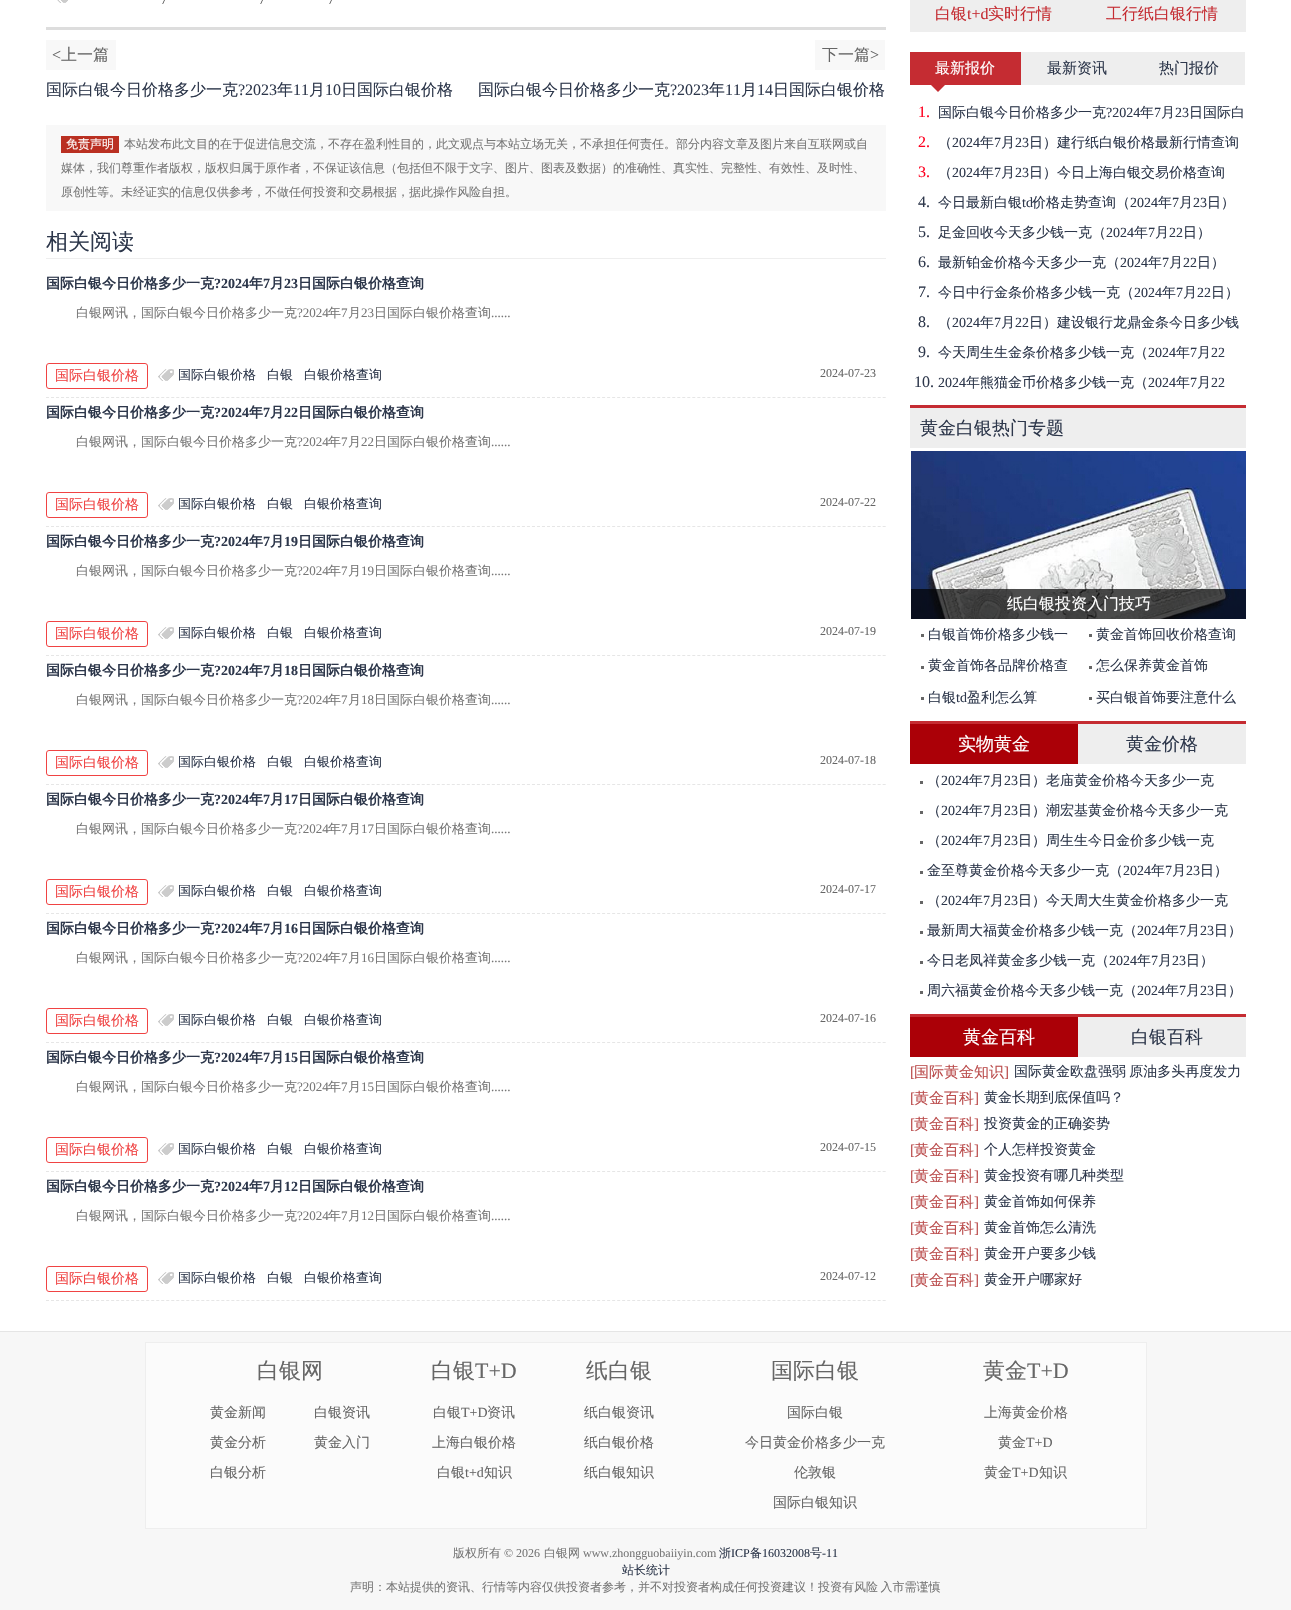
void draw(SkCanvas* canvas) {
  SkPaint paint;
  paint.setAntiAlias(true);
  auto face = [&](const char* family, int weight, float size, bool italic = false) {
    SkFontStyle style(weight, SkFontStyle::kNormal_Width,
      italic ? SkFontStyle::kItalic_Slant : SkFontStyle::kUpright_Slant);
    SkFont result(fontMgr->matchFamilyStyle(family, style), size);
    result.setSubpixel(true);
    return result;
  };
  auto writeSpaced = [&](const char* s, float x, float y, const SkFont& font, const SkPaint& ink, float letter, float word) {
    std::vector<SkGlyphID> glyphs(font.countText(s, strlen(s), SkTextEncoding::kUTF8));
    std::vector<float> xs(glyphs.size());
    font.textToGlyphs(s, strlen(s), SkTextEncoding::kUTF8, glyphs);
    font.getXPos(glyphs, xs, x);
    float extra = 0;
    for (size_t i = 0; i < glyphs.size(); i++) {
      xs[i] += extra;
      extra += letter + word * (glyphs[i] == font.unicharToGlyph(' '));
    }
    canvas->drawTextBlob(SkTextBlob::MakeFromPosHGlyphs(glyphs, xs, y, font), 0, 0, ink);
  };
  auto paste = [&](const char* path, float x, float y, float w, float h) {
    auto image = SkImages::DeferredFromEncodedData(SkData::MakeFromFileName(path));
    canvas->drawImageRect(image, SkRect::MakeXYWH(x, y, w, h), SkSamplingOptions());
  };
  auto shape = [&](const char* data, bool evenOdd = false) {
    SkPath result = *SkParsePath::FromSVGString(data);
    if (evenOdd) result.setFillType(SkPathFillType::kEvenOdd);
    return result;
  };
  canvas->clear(0xffffffff);
  paint.setColor(0xffdddddd);
  canvas->drawRect(SkRect::MakeXYWH(46, 27, 840, 3), paint);
  paste("img/1.png", 57, 0, 11, 3);
  paste("img/2.png", 162, 0, 3, 4);
  paste("img/2.png", 260, 0, 3, 4);
  paste("img/2.png", 329, 0, 3, 4);
  {
    const struct { float x, y, w, h; SkColor color; } items[] = {
      {46, 40, 70, 30, 0xfff8f8f8},
      {815, 40, 70, 30, 0xfff8f8f8},
      {46, 125, 840, 86, 0xfff8f8f8},
      {61, 136, 58, 17, 0xffba3022},
      {46, 258, 840, 1, 0xffeeeeee},
    };
    for (auto [x, y, w, h, color] : items) {
      paint.setColor(color);
      canvas->drawRect(SkRect::MakeXYWH(x, y, w, h), paint);
    }
  }
  paint.setStroke(true);
  paint.setStrokeWidth(1);
  paint.setColor(0xffe6e6e6);
  paint.setPathEffect(SkDashPathEffect::Make({{3, 2.01f}}, 0));
  canvas->drawPath(shape("M46 397.5H886"), paint);
  paint.setPathEffect(nullptr);
  paint.setColor(0xfff04343);
  canvas->drawRoundRect(SkRect::MakeXYWH(46.5f, 363.5f, 101, 25), 2.5f, 2.5f, paint);
  paste("img/3.png", 158, 369, 16, 12);
  paint.setColor(0xffe6e6e6);
  paint.setPathEffect(SkDashPathEffect::Make({{3, 2.01f}}, 0));
  canvas->drawPath(shape("M46 526.5H886"), paint);
  paint.setPathEffect(nullptr);
  paint.setColor(0xfff04343);
  canvas->drawRoundRect(SkRect::MakeXYWH(46.5f, 492.5f, 101, 25), 2.5f, 2.5f, paint);
  paste("img/3.png", 158, 498, 16, 12);
  paint.setColor(0xffe6e6e6);
  paint.setPathEffect(SkDashPathEffect::Make({{3, 2.01f}}, 0));
  canvas->drawPath(shape("M46 655.5H886"), paint);
  paint.setPathEffect(nullptr);
  paint.setColor(0xfff04343);
  canvas->drawRoundRect(SkRect::MakeXYWH(46.5f, 621.5f, 101, 25), 2.5f, 2.5f, paint);
  paste("img/3.png", 158, 627, 16, 12);
  paint.setColor(0xffe6e6e6);
  paint.setPathEffect(SkDashPathEffect::Make({{3, 2.01f}}, 0));
  canvas->drawPath(shape("M46 784.5H886"), paint);
  paint.setPathEffect(nullptr);
  paint.setColor(0xfff04343);
  canvas->drawRoundRect(SkRect::MakeXYWH(46.5f, 750.5f, 101, 25), 2.5f, 2.5f, paint);
  paste("img/3.png", 158, 756, 16, 12);
  paint.setColor(0xffe6e6e6);
  paint.setPathEffect(SkDashPathEffect::Make({{3, 2.01f}}, 0));
  canvas->drawPath(shape("M46 913.5H886"), paint);
  paint.setPathEffect(nullptr);
  paint.setColor(0xfff04343);
  canvas->drawRoundRect(SkRect::MakeXYWH(46.5f, 879.5f, 101, 25), 2.5f, 2.5f, paint);
  paste("img/3.png", 158, 885, 16, 12);
  paint.setColor(0xffe6e6e6);
  paint.setPathEffect(SkDashPathEffect::Make({{3, 2.01f}}, 0));
  canvas->drawPath(shape("M46 1042.5H886"), paint);
  paint.setPathEffect(nullptr);
  paint.setColor(0xfff04343);
  canvas->drawRoundRect(SkRect::MakeXYWH(46.5f, 1008.5f, 101, 25), 2.5f, 2.5f, paint);
  paste("img/3.png", 158, 1014, 16, 12);
  paint.setColor(0xffe6e6e6);
  paint.setPathEffect(SkDashPathEffect::Make({{3, 2.01f}}, 0));
  canvas->drawPath(shape("M46 1171.5H886"), paint);
  paint.setPathEffect(nullptr);
  paint.setColor(0xfff04343);
  canvas->drawRoundRect(SkRect::MakeXYWH(46.5f, 1137.5f, 101, 25), 2.5f, 2.5f, paint);
  paste("img/3.png", 158, 1143, 16, 12);
  paint.setColor(0xffe6e6e6);
  paint.setPathEffect(SkDashPathEffect::Make({{3, 2.01f}}, 0));
  canvas->drawPath(shape("M46 1300.5H886"), paint);
  paint.setPathEffect(nullptr);
  paint.setColor(0xfff04343);
  canvas->drawRoundRect(SkRect::MakeXYWH(46.5f, 1266.5f, 101, 25), 2.5f, 2.5f, paint);
  paste("img/3.png", 158, 1272, 16, 12);
  paint.setStroke(false);
  paint.setColor(0xffeeeeee);
  canvas->drawRect(SkRect::MakeXYWH(910, 0, 336, 32), paint);
  paint.setColor(0xffc52c32);
  canvas->drawRect(SkRect::MakeXYWH(910, 52, 111, 33), paint);
  canvas->drawPath(shape("M926 80H950L938 92Z"), paint);
  {
    const struct { float x, y, w, h; SkColor color; } items[] = {
      {1021, 52, 224, 33, 0xffeeeeee},
      {910, 408, 336, 40, 0xffeeeeee},
      {910, 405, 336, 3, 0xffc52c32},
    };
    for (auto [x, y, w, h, color] : items) {
      paint.setColor(color);
      canvas->drawRect(SkRect::MakeXYWH(x, y, w, h), paint);
    }
  }
  paste("img/4.png", 911, 451, 335, 168);
  {
    const struct { float x, y, w, h; SkColor color; } items[] = {
      {911, 589, 335, 30, 0xb3000000},
      {921, 634, 3, 3, 0xff666666},
      {1089, 634, 3, 3, 0xff666666},
      {921, 666, 3, 3, 0xff666666},
      {1089, 666, 3, 3, 0xff666666},
      {921, 697, 3, 3, 0xff666666},
      {1089, 697, 3, 3, 0xff666666},
      {910, 724, 168, 40, 0xffab0007},
      {910, 721, 336, 3, 0xffc52c32},
      {1078, 724, 168, 40, 0xffeeeeee},
      {920, 781, 3, 3, 0xff666666},
      {920, 811, 3, 3, 0xff666666},
      {920, 841, 3, 3, 0xff666666},
      {920, 871, 3, 3, 0xff666666},
      {920, 901, 3, 3, 0xff666666},
      {920, 931, 3, 3, 0xff666666},
      {920, 961, 3, 3, 0xff666666},
      {920, 991, 3, 3, 0xff666666},
      {910, 1017, 168, 40, 0xffab0007},
      {910, 1014, 336, 3, 0xffc52c32},
      {1078, 1017, 168, 40, 0xffeeeeee},
      {0, 1332, 1291, 278, 0xfff7f7f7},
      {0, 1331, 1291, 1, 0xffe5e5e5},
    };
    for (auto [x, y, w, h, color] : items) {
      paint.setColor(color);
      canvas->drawRect(SkRect::MakeXYWH(x, y, w, h), paint);
    }
  }
  paint.setColor(0xfffbfbfb);
  canvas->drawRect(SkRect::MakeXYWH(145.5f, 1342.5f, 1001, 186), paint);
  paint.setStroke(true);
  paint.setColor(0xffeeeeee);
  canvas->drawRect(SkRect::MakeXYWH(145.5f, 1342.5f, 1001, 186), paint);
  auto f0 = face("Liberation Serif", 400, 16);
  paint.setStroke(false);
  paint.setColor(0xff666666);
  canvas->drawString("<", 52, 60, f0, paint);
  auto f1 = face("WenQuanYi Zen Hei", 500, 16);
  canvas->drawString("上一篇", 61, 60, f1, paint);
  paint.setColor(0xff2d374b);
  canvas->drawString("国际白银今日价格多少一克", 46, 95, f1, paint);
  canvas->drawString("?2023", 238, 95, f0, paint);
  canvas->drawString("年", 277, 95, f1, paint);
  canvas->drawString("11", 293, 95, f0, paint);
  canvas->drawString("月", 309, 95, f1, paint);
  canvas->drawString("10", 325, 95, f0, paint);
  canvas->drawString("日国际白银价格", 341, 95, f1, paint);
  paint.setColor(0xff666666);
  canvas->drawString("下一篇", 822, 60, f1, paint);
  canvas->drawString(">", 870, 60, f0, paint);
  paint.setColor(0xff2d374b);
  canvas->drawString("国际白银今日价格多少一克", 478, 95, f1, paint);
  canvas->drawString("?2023", 670, 95, f0, paint);
  canvas->drawString("年", 709, 95, f1, paint);
  canvas->drawString("11", 725, 95, f0, paint);
  canvas->drawString("月", 741, 95, f1, paint);
  canvas->drawString("14", 757, 95, f0, paint);
  canvas->drawString("日国际白银价格", 773, 95, f1, paint);
  auto f2 = face("WenQuanYi Zen Hei", 500, 12);
  paint.setColor(0xffffffff);
  canvas->drawString("免责声明", 66, 148, f2, paint);
  paint.setColor(0xff777777);
  {
    const struct { const char* s; float x, y; } items[] = {
      {"本站发布此文目的在于促进信息交流，不存在盈利性目的，此文观点与本站立场无关，不承担任何责任。部分内容文章及图片来自互联网或自", 124, 148},
      {"媒体，我们尊重作者版权，版权归属于原作者，不保证该信息（包括但不限于文字、图片、图表及数据）的准确性、真实性、完整性、有效性、及时性、", 61, 172},
      {"原创性等。未经证实的信息仅供参考，不做任何投资和交易根据，据此操作风险自担。", 61, 196},
    };
    for (auto [s, x, y] : items) {
      canvas->drawString(s, x, y, f2, paint);
    }
  }
  auto f3 = face("WenQuanYi Zen Hei", 500, 22);
  paint.setColor(0xff2d374b);
  canvas->drawString("相关阅读", 46, 249, f3, paint);
  auto f4 = face("WenQuanYi Zen Hei", 700, 14);
  canvas->drawString("国际白银今日价格多少一克", 46, 288, f4, paint);
  auto f5 = face("Liberation Serif", 700, 14);
  canvas->drawString("?2024", 214, 288, f5, paint);
  canvas->drawString("年", 249, 288, f4, paint);
  canvas->drawString("7", 263, 288, f5, paint);
  canvas->drawString("月", 270, 288, f4, paint);
  canvas->drawString("23", 284, 288, f5, paint);
  canvas->drawString("日国际白银价格查询", 298, 288, f4, paint);
  auto f6 = face("WenQuanYi Zen Hei", 500, 13);
  paint.setColor(0xff777777);
  canvas->drawString("白银网讯，国际白银今日价格多少一克", 76, 317, f6, paint);
  auto f7 = face("Liberation Serif", 400, 13);
  canvas->drawString("?2024", 297, 317, f7, paint);
  canvas->drawString("年", 328, 317, f6, paint);
  canvas->drawString("7", 341, 317, f7, paint);
  canvas->drawString("月", 348, 317, f6, paint);
  canvas->drawString("23", 361, 317, f7, paint);
  canvas->drawString("日国际白银价格查询", 374, 317, f6, paint);
  canvas->drawString("......", 491, 317, f7, paint);
  auto f8 = face("WenQuanYi Zen Hei", 500, 14);
  paint.setColor(0xfff04343);
  canvas->drawString("国际白银价格", 55, 380, f8, paint);
  paint.setColor(0xff2d374b);
  {
    const struct { const char* s; float x, y; } items[] = {
      {"国际白银价格", 178, 379},
      {"白银", 267, 379},
      {"白银价格查询", 304, 379},
    };
    for (auto [s, x, y] : items) {
      canvas->drawString(s, x, y, f6, paint);
    }
  }
  auto f9 = face("Liberation Serif", 400, 12);
  paint.setColor(0xff666666);
  canvas->drawString("2024-07-23", 820, 377, f9, paint);
  paint.setColor(0xff2d374b);
  canvas->drawString("国际白银今日价格多少一克", 46, 417, f4, paint);
  canvas->drawString("?2024", 214, 417, f5, paint);
  canvas->drawString("年", 249, 417, f4, paint);
  canvas->drawString("7", 263, 417, f5, paint);
  canvas->drawString("月", 270, 417, f4, paint);
  canvas->drawString("22", 284, 417, f5, paint);
  canvas->drawString("日国际白银价格查询", 298, 417, f4, paint);
  paint.setColor(0xff777777);
  canvas->drawString("白银网讯，国际白银今日价格多少一克", 76, 446, f6, paint);
  canvas->drawString("?2024", 297, 446, f7, paint);
  canvas->drawString("年", 328, 446, f6, paint);
  canvas->drawString("7", 341, 446, f7, paint);
  canvas->drawString("月", 348, 446, f6, paint);
  canvas->drawString("22", 361, 446, f7, paint);
  canvas->drawString("日国际白银价格查询", 374, 446, f6, paint);
  canvas->drawString("......", 491, 446, f7, paint);
  paint.setColor(0xfff04343);
  canvas->drawString("国际白银价格", 55, 509, f8, paint);
  paint.setColor(0xff2d374b);
  {
    const struct { const char* s; float x, y; } items[] = {
      {"国际白银价格", 178, 508},
      {"白银", 267, 508},
      {"白银价格查询", 304, 508},
    };
    for (auto [s, x, y] : items) {
      canvas->drawString(s, x, y, f6, paint);
    }
  }
  paint.setColor(0xff666666);
  canvas->drawString("2024-07-22", 820, 506, f9, paint);
  paint.setColor(0xff2d374b);
  canvas->drawString("国际白银今日价格多少一克", 46, 546, f4, paint);
  canvas->drawString("?2024", 214, 546, f5, paint);
  canvas->drawString("年", 249, 546, f4, paint);
  canvas->drawString("7", 263, 546, f5, paint);
  canvas->drawString("月", 270, 546, f4, paint);
  canvas->drawString("19", 284, 546, f5, paint);
  canvas->drawString("日国际白银价格查询", 298, 546, f4, paint);
  paint.setColor(0xff777777);
  canvas->drawString("白银网讯，国际白银今日价格多少一克", 76, 575, f6, paint);
  canvas->drawString("?2024", 297, 575, f7, paint);
  canvas->drawString("年", 328, 575, f6, paint);
  canvas->drawString("7", 341, 575, f7, paint);
  canvas->drawString("月", 348, 575, f6, paint);
  canvas->drawString("19", 361, 575, f7, paint);
  canvas->drawString("日国际白银价格查询", 374, 575, f6, paint);
  canvas->drawString("......", 491, 575, f7, paint);
  paint.setColor(0xfff04343);
  canvas->drawString("国际白银价格", 55, 638, f8, paint);
  paint.setColor(0xff2d374b);
  {
    const struct { const char* s; float x, y; } items[] = {
      {"国际白银价格", 178, 637},
      {"白银", 267, 637},
      {"白银价格查询", 304, 637},
    };
    for (auto [s, x, y] : items) {
      canvas->drawString(s, x, y, f6, paint);
    }
  }
  paint.setColor(0xff666666);
  canvas->drawString("2024-07-19", 820, 635, f9, paint);
  paint.setColor(0xff2d374b);
  canvas->drawString("国际白银今日价格多少一克", 46, 675, f4, paint);
  canvas->drawString("?2024", 214, 675, f5, paint);
  canvas->drawString("年", 249, 675, f4, paint);
  canvas->drawString("7", 263, 675, f5, paint);
  canvas->drawString("月", 270, 675, f4, paint);
  canvas->drawString("18", 284, 675, f5, paint);
  canvas->drawString("日国际白银价格查询", 298, 675, f4, paint);
  paint.setColor(0xff777777);
  canvas->drawString("白银网讯，国际白银今日价格多少一克", 76, 704, f6, paint);
  canvas->drawString("?2024", 297, 704, f7, paint);
  canvas->drawString("年", 328, 704, f6, paint);
  canvas->drawString("7", 341, 704, f7, paint);
  canvas->drawString("月", 348, 704, f6, paint);
  canvas->drawString("18", 361, 704, f7, paint);
  canvas->drawString("日国际白银价格查询", 374, 704, f6, paint);
  canvas->drawString("......", 491, 704, f7, paint);
  paint.setColor(0xfff04343);
  canvas->drawString("国际白银价格", 55, 767, f8, paint);
  paint.setColor(0xff2d374b);
  {
    const struct { const char* s; float x, y; } items[] = {
      {"国际白银价格", 178, 766},
      {"白银", 267, 766},
      {"白银价格查询", 304, 766},
    };
    for (auto [s, x, y] : items) {
      canvas->drawString(s, x, y, f6, paint);
    }
  }
  paint.setColor(0xff666666);
  canvas->drawString("2024-07-18", 820, 764, f9, paint);
  paint.setColor(0xff2d374b);
  canvas->drawString("国际白银今日价格多少一克", 46, 804, f4, paint);
  canvas->drawString("?2024", 214, 804, f5, paint);
  canvas->drawString("年", 249, 804, f4, paint);
  canvas->drawString("7", 263, 804, f5, paint);
  canvas->drawString("月", 270, 804, f4, paint);
  canvas->drawString("17", 284, 804, f5, paint);
  canvas->drawString("日国际白银价格查询", 298, 804, f4, paint);
  paint.setColor(0xff777777);
  canvas->drawString("白银网讯，国际白银今日价格多少一克", 76, 833, f6, paint);
  canvas->drawString("?2024", 297, 833, f7, paint);
  canvas->drawString("年", 328, 833, f6, paint);
  canvas->drawString("7", 341, 833, f7, paint);
  canvas->drawString("月", 348, 833, f6, paint);
  canvas->drawString("17", 361, 833, f7, paint);
  canvas->drawString("日国际白银价格查询", 374, 833, f6, paint);
  canvas->drawString("......", 491, 833, f7, paint);
  paint.setColor(0xfff04343);
  canvas->drawString("国际白银价格", 55, 896, f8, paint);
  paint.setColor(0xff2d374b);
  {
    const struct { const char* s; float x, y; } items[] = {
      {"国际白银价格", 178, 895},
      {"白银", 267, 895},
      {"白银价格查询", 304, 895},
    };
    for (auto [s, x, y] : items) {
      canvas->drawString(s, x, y, f6, paint);
    }
  }
  paint.setColor(0xff666666);
  canvas->drawString("2024-07-17", 820, 893, f9, paint);
  paint.setColor(0xff2d374b);
  canvas->drawString("国际白银今日价格多少一克", 46, 933, f4, paint);
  canvas->drawString("?2024", 214, 933, f5, paint);
  canvas->drawString("年", 249, 933, f4, paint);
  canvas->drawString("7", 263, 933, f5, paint);
  canvas->drawString("月", 270, 933, f4, paint);
  canvas->drawString("16", 284, 933, f5, paint);
  canvas->drawString("日国际白银价格查询", 298, 933, f4, paint);
  paint.setColor(0xff777777);
  canvas->drawString("白银网讯，国际白银今日价格多少一克", 76, 962, f6, paint);
  canvas->drawString("?2024", 297, 962, f7, paint);
  canvas->drawString("年", 328, 962, f6, paint);
  canvas->drawString("7", 341, 962, f7, paint);
  canvas->drawString("月", 348, 962, f6, paint);
  canvas->drawString("16", 361, 962, f7, paint);
  canvas->drawString("日国际白银价格查询", 374, 962, f6, paint);
  canvas->drawString("......", 491, 962, f7, paint);
  paint.setColor(0xfff04343);
  canvas->drawString("国际白银价格", 55, 1025, f8, paint);
  paint.setColor(0xff2d374b);
  {
    const struct { const char* s; float x, y; } items[] = {
      {"国际白银价格", 178, 1024},
      {"白银", 267, 1024},
      {"白银价格查询", 304, 1024},
    };
    for (auto [s, x, y] : items) {
      canvas->drawString(s, x, y, f6, paint);
    }
  }
  paint.setColor(0xff666666);
  canvas->drawString("2024-07-16", 820, 1022, f9, paint);
  paint.setColor(0xff2d374b);
  canvas->drawString("国际白银今日价格多少一克", 46, 1062, f4, paint);
  canvas->drawString("?2024", 214, 1062, f5, paint);
  canvas->drawString("年", 249, 1062, f4, paint);
  canvas->drawString("7", 263, 1062, f5, paint);
  canvas->drawString("月", 270, 1062, f4, paint);
  canvas->drawString("15", 284, 1062, f5, paint);
  canvas->drawString("日国际白银价格查询", 298, 1062, f4, paint);
  paint.setColor(0xff777777);
  canvas->drawString("白银网讯，国际白银今日价格多少一克", 76, 1091, f6, paint);
  canvas->drawString("?2024", 297, 1091, f7, paint);
  canvas->drawString("年", 328, 1091, f6, paint);
  canvas->drawString("7", 341, 1091, f7, paint);
  canvas->drawString("月", 348, 1091, f6, paint);
  canvas->drawString("15", 361, 1091, f7, paint);
  canvas->drawString("日国际白银价格查询", 374, 1091, f6, paint);
  canvas->drawString("......", 491, 1091, f7, paint);
  paint.setColor(0xfff04343);
  canvas->drawString("国际白银价格", 55, 1154, f8, paint);
  paint.setColor(0xff2d374b);
  {
    const struct { const char* s; float x, y; } items[] = {
      {"国际白银价格", 178, 1153},
      {"白银", 267, 1153},
      {"白银价格查询", 304, 1153},
    };
    for (auto [s, x, y] : items) {
      canvas->drawString(s, x, y, f6, paint);
    }
  }
  paint.setColor(0xff666666);
  canvas->drawString("2024-07-15", 820, 1151, f9, paint);
  paint.setColor(0xff2d374b);
  canvas->drawString("国际白银今日价格多少一克", 46, 1191, f4, paint);
  canvas->drawString("?2024", 214, 1191, f5, paint);
  canvas->drawString("年", 249, 1191, f4, paint);
  canvas->drawString("7", 263, 1191, f5, paint);
  canvas->drawString("月", 270, 1191, f4, paint);
  canvas->drawString("12", 284, 1191, f5, paint);
  canvas->drawString("日国际白银价格查询", 298, 1191, f4, paint);
  paint.setColor(0xff777777);
  canvas->drawString("白银网讯，国际白银今日价格多少一克", 76, 1220, f6, paint);
  canvas->drawString("?2024", 297, 1220, f7, paint);
  canvas->drawString("年", 328, 1220, f6, paint);
  canvas->drawString("7", 341, 1220, f7, paint);
  canvas->drawString("月", 348, 1220, f6, paint);
  canvas->drawString("12", 361, 1220, f7, paint);
  canvas->drawString("日国际白银价格查询", 374, 1220, f6, paint);
  canvas->drawString("......", 491, 1220, f7, paint);
  paint.setColor(0xfff04343);
  canvas->drawString("国际白银价格", 55, 1283, f8, paint);
  paint.setColor(0xff2d374b);
  {
    const struct { const char* s; float x, y; } items[] = {
      {"国际白银价格", 178, 1282},
      {"白银", 267, 1282},
      {"白银价格查询", 304, 1282},
    };
    for (auto [s, x, y] : items) {
      canvas->drawString(s, x, y, f6, paint);
    }
  }
  paint.setColor(0xff666666);
  canvas->drawString("2024-07-12", 820, 1280, f9, paint);
  paint.setColor(0xffc52c32);
  canvas->drawString("白银", 935, 19, f1, paint);
  canvas->drawString("t+d", 967, 19, f0, paint);
  canvas->drawString("实时行情", 988, 19, f1, paint);
  canvas->drawString("工行纸白银行情", 1106, 19, f1, paint);
  auto f10 = face("WenQuanYi Zen Hei", 500, 15);
  paint.setColor(0xffffffff);
  canvas->drawString("最新报价", 935, 73, f10, paint);
  paint.setColor(0xff2d374b);
  canvas->drawString("最新资讯", 1047, 73, f10, paint);
  canvas->drawString("热门报价", 1159, 73, f10, paint);
  paint.setColor(0xffff001f);
  canvas->drawString("1.", 918, 117, f0, paint);
  paint.setColor(0xff2d374b);
  canvas->drawString("国际白银今日价格多少一克", 938, 117, f8, paint);
  auto f11 = face("Liberation Serif", 400, 14);
  canvas->drawString("?2024", 1106, 117, f11, paint);
  canvas->drawString("年", 1140, 117, f8, paint);
  canvas->drawString("7", 1154, 117, f11, paint);
  canvas->drawString("月", 1161, 117, f8, paint);
  canvas->drawString("23", 1175, 117, f11, paint);
  canvas->drawString("日国际白", 1189, 117, f8, paint);
  paint.setColor(0xffff001f);
  canvas->drawString("2.", 918, 147, f0, paint);
  paint.setColor(0xff2d374b);
  canvas->drawString("（", 938, 147, f8, paint);
  canvas->drawString("2024", 952, 147, f11, paint);
  canvas->drawString("年", 980, 147, f8, paint);
  canvas->drawString("7", 994, 147, f11, paint);
  canvas->drawString("月", 1001, 147, f8, paint);
  canvas->drawString("23", 1015, 147, f11, paint);
  canvas->drawString("日）建行纸白银价格最新行情查询", 1029, 147, f8, paint);
  paint.setColor(0xffff001f);
  canvas->drawString("3.", 918, 177, f0, paint);
  paint.setColor(0xff2d374b);
  canvas->drawString("（", 938, 177, f8, paint);
  canvas->drawString("2024", 952, 177, f11, paint);
  canvas->drawString("年", 980, 177, f8, paint);
  canvas->drawString("7", 994, 177, f11, paint);
  canvas->drawString("月", 1001, 177, f8, paint);
  canvas->drawString("23", 1015, 177, f11, paint);
  canvas->drawString("日）今日上海白银交易价格查询", 1029, 177, f8, paint);
  canvas->drawString("4.", 918, 207, f0, paint);
  canvas->drawString("今日最新白银", 938, 207, f8, paint);
  canvas->drawString("td", 1022, 207, f11, paint);
  canvas->drawString("价格走势查询（", 1032, 207, f8, paint);
  canvas->drawString("2024", 1130, 207, f11, paint);
  canvas->drawString("年", 1158, 207, f8, paint);
  canvas->drawString("7", 1172, 207, f11, paint);
  canvas->drawString("月", 1179, 207, f8, paint);
  canvas->drawString("23", 1193, 207, f11, paint);
  canvas->drawString("日）", 1207, 207, f8, paint);
  canvas->drawString("5.", 918, 237, f0, paint);
  canvas->drawString("足金回收今天多少钱一克（", 938, 237, f8, paint);
  canvas->drawString("2024", 1106, 237, f11, paint);
  canvas->drawString("年", 1134, 237, f8, paint);
  canvas->drawString("7", 1148, 237, f11, paint);
  canvas->drawString("月", 1155, 237, f8, paint);
  canvas->drawString("22", 1169, 237, f11, paint);
  canvas->drawString("日）", 1183, 237, f8, paint);
  canvas->drawString("6.", 918, 267, f0, paint);
  canvas->drawString("最新铂金价格今天多少一克（", 938, 267, f8, paint);
  canvas->drawString("2024", 1120, 267, f11, paint);
  canvas->drawString("年", 1148, 267, f8, paint);
  canvas->drawString("7", 1162, 267, f11, paint);
  canvas->drawString("月", 1169, 267, f8, paint);
  canvas->drawString("22", 1183, 267, f11, paint);
  canvas->drawString("日）", 1197, 267, f8, paint);
  canvas->drawString("7.", 918, 297, f0, paint);
  canvas->drawString("今日中行金条价格多少钱一克（", 938, 297, f8, paint);
  canvas->drawString("2024", 1134, 297, f11, paint);
  canvas->drawString("年", 1162, 297, f8, paint);
  canvas->drawString("7", 1176, 297, f11, paint);
  canvas->drawString("月", 1183, 297, f8, paint);
  canvas->drawString("22", 1197, 297, f11, paint);
  canvas->drawString("日）", 1211, 297, f8, paint);
  canvas->drawString("8.", 918, 327, f0, paint);
  canvas->drawString("（", 938, 327, f8, paint);
  canvas->drawString("2024", 952, 327, f11, paint);
  canvas->drawString("年", 980, 327, f8, paint);
  canvas->drawString("7", 994, 327, f11, paint);
  canvas->drawString("月", 1001, 327, f8, paint);
  canvas->drawString("22", 1015, 327, f11, paint);
  canvas->drawString("日）建设银行龙鼎金条今日多少钱", 1029, 327, f8, paint);
  canvas->drawString("9.", 918, 357, f0, paint);
  canvas->drawString("今天周生生金条价格多少钱一克（", 938, 357, f8, paint);
  canvas->drawString("2024", 1148, 357, f11, paint);
  canvas->drawString("年", 1176, 357, f8, paint);
  canvas->drawString("7", 1190, 357, f11, paint);
  canvas->drawString("月", 1197, 357, f8, paint);
  canvas->drawString("22", 1211, 357, f11, paint);
  canvas->drawString("10.", 914, 387, f0, paint);
  canvas->drawString("2024", 938, 387, f11, paint);
  canvas->drawString("年熊猫金币价格多少钱一克（", 966, 387, f8, paint);
  canvas->drawString("2024", 1148, 387, f11, paint);
  canvas->drawString("年", 1176, 387, f8, paint);
  canvas->drawString("7", 1190, 387, f11, paint);
  canvas->drawString("月", 1197, 387, f8, paint);
  canvas->drawString("22", 1211, 387, f11, paint);
  auto f12 = face("WenQuanYi Zen Hei", 500, 18);
  canvas->drawString("黄金白银热门专题", 920, 434, f12, paint);
  paint.setColor(0xffffffff);
  canvas->drawString("纸白银投资入门技巧", 1007, 609, f1, paint);
  paint.setColor(0xff2d374b);
  {
    const struct { const char* s; float x, y; } items[] = {
      {"白银首饰价格多少钱一", 928, 639},
      {"黄金首饰回收价格查询", 1096, 639},
      {"黄金首饰各品牌价格查", 928, 670},
      {"怎么保养黄金首饰", 1096, 670},
      {"白银", 928, 702},
    };
    for (auto [s, x, y] : items) {
      canvas->drawString(s, x, y, f8, paint);
    }
  }
  canvas->drawString("td", 956, 702, f11, paint);
  canvas->drawString("盈利怎么算", 967, 702, f8, paint);
  canvas->drawString("买白银首饰要注意什么", 1096, 702, f8, paint);
  paint.setColor(0xffffffff);
  canvas->drawString("实物黄金", 958, 750, f12, paint);
  paint.setColor(0xff2d374b);
  canvas->drawString("黄金价格", 1126, 750, f12, paint);
  canvas->drawString("（", 927, 785, f8, paint);
  canvas->drawString("2024", 941, 785, f11, paint);
  canvas->drawString("年", 969, 785, f8, paint);
  canvas->drawString("7", 983, 785, f11, paint);
  canvas->drawString("月", 990, 785, f8, paint);
  canvas->drawString("23", 1004, 785, f11, paint);
  canvas->drawString("日）老庙黄金价格今天多少一克", 1018, 785, f8, paint);
  canvas->drawString("（", 927, 815, f8, paint);
  canvas->drawString("2024", 941, 815, f11, paint);
  canvas->drawString("年", 969, 815, f8, paint);
  canvas->drawString("7", 983, 815, f11, paint);
  canvas->drawString("月", 990, 815, f8, paint);
  canvas->drawString("23", 1004, 815, f11, paint);
  canvas->drawString("日）潮宏基黄金价格今天多少一克", 1018, 815, f8, paint);
  canvas->drawString("（", 927, 845, f8, paint);
  canvas->drawString("2024", 941, 845, f11, paint);
  canvas->drawString("年", 969, 845, f8, paint);
  canvas->drawString("7", 983, 845, f11, paint);
  canvas->drawString("月", 990, 845, f8, paint);
  canvas->drawString("23", 1004, 845, f11, paint);
  canvas->drawString("日）周生生今日金价多少钱一克", 1018, 845, f8, paint);
  canvas->drawString("金至尊黄金价格今天多少一克（", 927, 875, f8, paint);
  canvas->drawString("2024", 1123, 875, f11, paint);
  canvas->drawString("年", 1151, 875, f8, paint);
  canvas->drawString("7", 1165, 875, f11, paint);
  canvas->drawString("月", 1172, 875, f8, paint);
  canvas->drawString("23", 1186, 875, f11, paint);
  canvas->drawString("日）", 1200, 875, f8, paint);
  canvas->drawString("（", 927, 905, f8, paint);
  canvas->drawString("2024", 941, 905, f11, paint);
  canvas->drawString("年", 969, 905, f8, paint);
  canvas->drawString("7", 983, 905, f11, paint);
  canvas->drawString("月", 990, 905, f8, paint);
  canvas->drawString("23", 1004, 905, f11, paint);
  canvas->drawString("日）今天周大生黄金价格多少一克", 1018, 905, f8, paint);
  canvas->drawString("最新周大福黄金价格多少钱一克（", 927, 935, f8, paint);
  canvas->drawString("2024", 1137, 935, f11, paint);
  canvas->drawString("年", 1165, 935, f8, paint);
  canvas->drawString("7", 1179, 935, f11, paint);
  canvas->drawString("月", 1186, 935, f8, paint);
  canvas->drawString("23", 1200, 935, f11, paint);
  canvas->drawString("日）", 1214, 935, f8, paint);
  canvas->drawString("今日老凤祥黄金多少钱一克（", 927, 965, f8, paint);
  canvas->drawString("2024", 1109, 965, f11, paint);
  canvas->drawString("年", 1137, 965, f8, paint);
  canvas->drawString("7", 1151, 965, f11, paint);
  canvas->drawString("月", 1158, 965, f8, paint);
  canvas->drawString("23", 1172, 965, f11, paint);
  canvas->drawString("日）", 1186, 965, f8, paint);
  canvas->drawString("周六福黄金价格今天多少钱一克（", 927, 995, f8, paint);
  canvas->drawString("2024", 1137, 995, f11, paint);
  canvas->drawString("年", 1165, 995, f8, paint);
  canvas->drawString("7", 1179, 995, f11, paint);
  canvas->drawString("月", 1186, 995, f8, paint);
  canvas->drawString("23", 1200, 995, f11, paint);
  canvas->drawString("日）", 1214, 995, f8, paint);
  paint.setColor(0xffffffff);
  canvas->drawString("黄金百科", 963, 1043, f12, paint);
  paint.setColor(0xff2d374b);
  canvas->drawString("白银百科", 1131, 1043, f12, paint);
  auto f13 = face("Liberation Serif", 400, 15);
  paint.setColor(0xffbb4d4d);
  canvas->drawString("[", 910, 1077, f13, paint);
  canvas->drawString("国际黄金知识", 914, 1077, f10, paint);
  canvas->drawString("]", 1004, 1077, f13, paint);
  paint.setColor(0xff2d374b);
  writeSpaced("国际黄金欧盘强弱 原油多头再度发力", 1014, 1076, f8, paint, 0, -1);
  paint.setColor(0xffbb4d4d);
  canvas->drawString("[", 910, 1103, f13, paint);
  canvas->drawString("黄金百科", 914, 1103, f10, paint);
  canvas->drawString("]", 974, 1103, f13, paint);
  paint.setColor(0xff2d374b);
  canvas->drawString("黄金长期到底保值吗？", 984, 1102, f8, paint);
  paint.setColor(0xffbb4d4d);
  canvas->drawString("[", 910, 1129, f13, paint);
  canvas->drawString("黄金百科", 914, 1129, f10, paint);
  canvas->drawString("]", 974, 1129, f13, paint);
  canvas->save();
  canvas->clipRect(SkRect::MakeXYWH(984, 1111, 262, 26));
  paint.setColor(0xff2d374b);
  canvas->drawString("投资黄金的正确姿势", 984, 1128, f8, paint);
  canvas->restore();
  paint.setColor(0xffbb4d4d);
  canvas->drawString("[", 910, 1155, f13, paint);
  canvas->drawString("黄金百科", 914, 1155, f10, paint);
  canvas->drawString("]", 974, 1155, f13, paint);
  paint.setColor(0xff2d374b);
  canvas->drawString("个人怎样投资黄金", 984, 1154, f8, paint);
  paint.setColor(0xffbb4d4d);
  canvas->drawString("[", 910, 1181, f13, paint);
  canvas->drawString("黄金百科", 914, 1181, f10, paint);
  canvas->drawString("]", 974, 1181, f13, paint);
  paint.setColor(0xff2d374b);
  canvas->drawString("黄金投资有哪几种类型", 984, 1180, f8, paint);
  paint.setColor(0xffbb4d4d);
  canvas->drawString("[", 910, 1207, f13, paint);
  canvas->drawString("黄金百科", 914, 1207, f10, paint);
  canvas->drawString("]", 974, 1207, f13, paint);
  paint.setColor(0xff2d374b);
  canvas->drawString("黄金首饰如何保养", 984, 1206, f8, paint);
  paint.setColor(0xffbb4d4d);
  canvas->drawString("[", 910, 1233, f13, paint);
  canvas->drawString("黄金百科", 914, 1233, f10, paint);
  canvas->drawString("]", 974, 1233, f13, paint);
  paint.setColor(0xff2d374b);
  canvas->drawString("黄金首饰怎么清洗", 984, 1232, f8, paint);
  paint.setColor(0xffbb4d4d);
  canvas->drawString("[", 910, 1259, f13, paint);
  canvas->drawString("黄金百科", 914, 1259, f10, paint);
  canvas->drawString("]", 974, 1259, f13, paint);
  paint.setColor(0xff2d374b);
  canvas->drawString("黄金开户要多少钱", 984, 1258, f8, paint);
  paint.setColor(0xffbb4d4d);
  canvas->drawString("[", 910, 1285, f13, paint);
  canvas->drawString("黄金百科", 914, 1285, f10, paint);
  canvas->drawString("]", 974, 1285, f13, paint);
  paint.setColor(0xff2d374b);
  canvas->drawString("黄金开户哪家好", 984, 1284, f8, paint);
  paint.setColor(0xff666666);
  canvas->drawString("白银网", 257, 1378, f3, paint);
  canvas->drawString("白银", 431, 1378, f3, paint);
  auto f14 = face("Liberation Serif", 400, 22);
  canvas->drawString("T+D", 475, 1378, f14, paint);
  {
    const struct { const char* s; float x, y; } items[] = {
      {"纸白银", 586, 1378},
      {"国际白银", 771, 1378},
      {"黄金", 983, 1378},
    };
    for (auto [s, x, y] : items) {
      canvas->drawString(s, x, y, f3, paint);
    }
  }
  canvas->drawString("T+D", 1027, 1378, f14, paint);
  {
    const struct { const char* s; float x, y; } items[] = {
      {"黄金新闻", 210, 1417},
      {"黄金分析", 210, 1447},
      {"白银分析", 210, 1477},
      {"白银资讯", 314, 1417},
      {"黄金入门", 314, 1447},
      {"白银", 433, 1417},
    };
    for (auto [s, x, y] : items) {
      canvas->drawString(s, x, y, f8, paint);
    }
  }
  canvas->drawString("T+D", 461, 1417, f11, paint);
  {
    const struct { const char* s; float x, y; } items[] = {
      {"资讯", 487, 1417},
      {"上海白银价格", 432, 1447},
      {"白银", 437, 1477},
    };
    for (auto [s, x, y] : items) {
      canvas->drawString(s, x, y, f8, paint);
    }
  }
  canvas->drawString("t+d", 465, 1477, f11, paint);
  {
    const struct { const char* s; float x, y; } items[] = {
      {"知识", 484, 1477},
      {"纸白银资讯", 584, 1417},
      {"纸白银价格", 584, 1447},
      {"纸白银知识", 584, 1477},
      {"国际白银", 787, 1417},
      {"今日黄金价格多少一克", 745, 1447},
      {"伦敦银", 794, 1477},
      {"国际白银知识", 773, 1507},
      {"上海黄金价格", 984, 1417},
      {"黄金", 998, 1447},
    };
    for (auto [s, x, y] : items) {
      canvas->drawString(s, x, y, f8, paint);
    }
  }
  canvas->drawString("T+D", 1026, 1447, f11, paint);
  canvas->drawString("黄金", 984, 1477, f8, paint);
  canvas->drawString("T+D", 1012, 1477, f11, paint);
  canvas->drawString("知识", 1039, 1477, f8, paint);
  paint.setColor(0xff777777);
  canvas->drawString("版权所有", 453, 1557, f2, paint);
  canvas->drawString("© 2026", 504, 1557, f9, paint);
  canvas->drawString("白银网", 544, 1557, f2, paint);
  canvas->drawString("www.zhongguobaiiyin.com", 583, 1557, f9, paint);
  paint.setColor(0xff2d374b);
  canvas->drawString("浙", 719, 1557, f2, paint);
  canvas->drawString("ICP", 731, 1557, f9, paint);
  canvas->drawString("备", 750, 1557, f2, paint);
  canvas->drawString("16032008", 762, 1557, f9, paint);
  canvas->drawString("号", 810, 1557, f2, paint);
  canvas->drawString("-11", 822, 1557, f9, paint);
  canvas->drawString("站长统计", 622, 1574, f2, paint);
  paint.setColor(0xff777777);
  writeSpaced("声明：本站提供的资讯、行情等内容仅供投资者参考，并不对投资者构成任何投资建议！投资有风险 入市需谨慎", 350, 1591, f2, paint, 0, -1);
}
